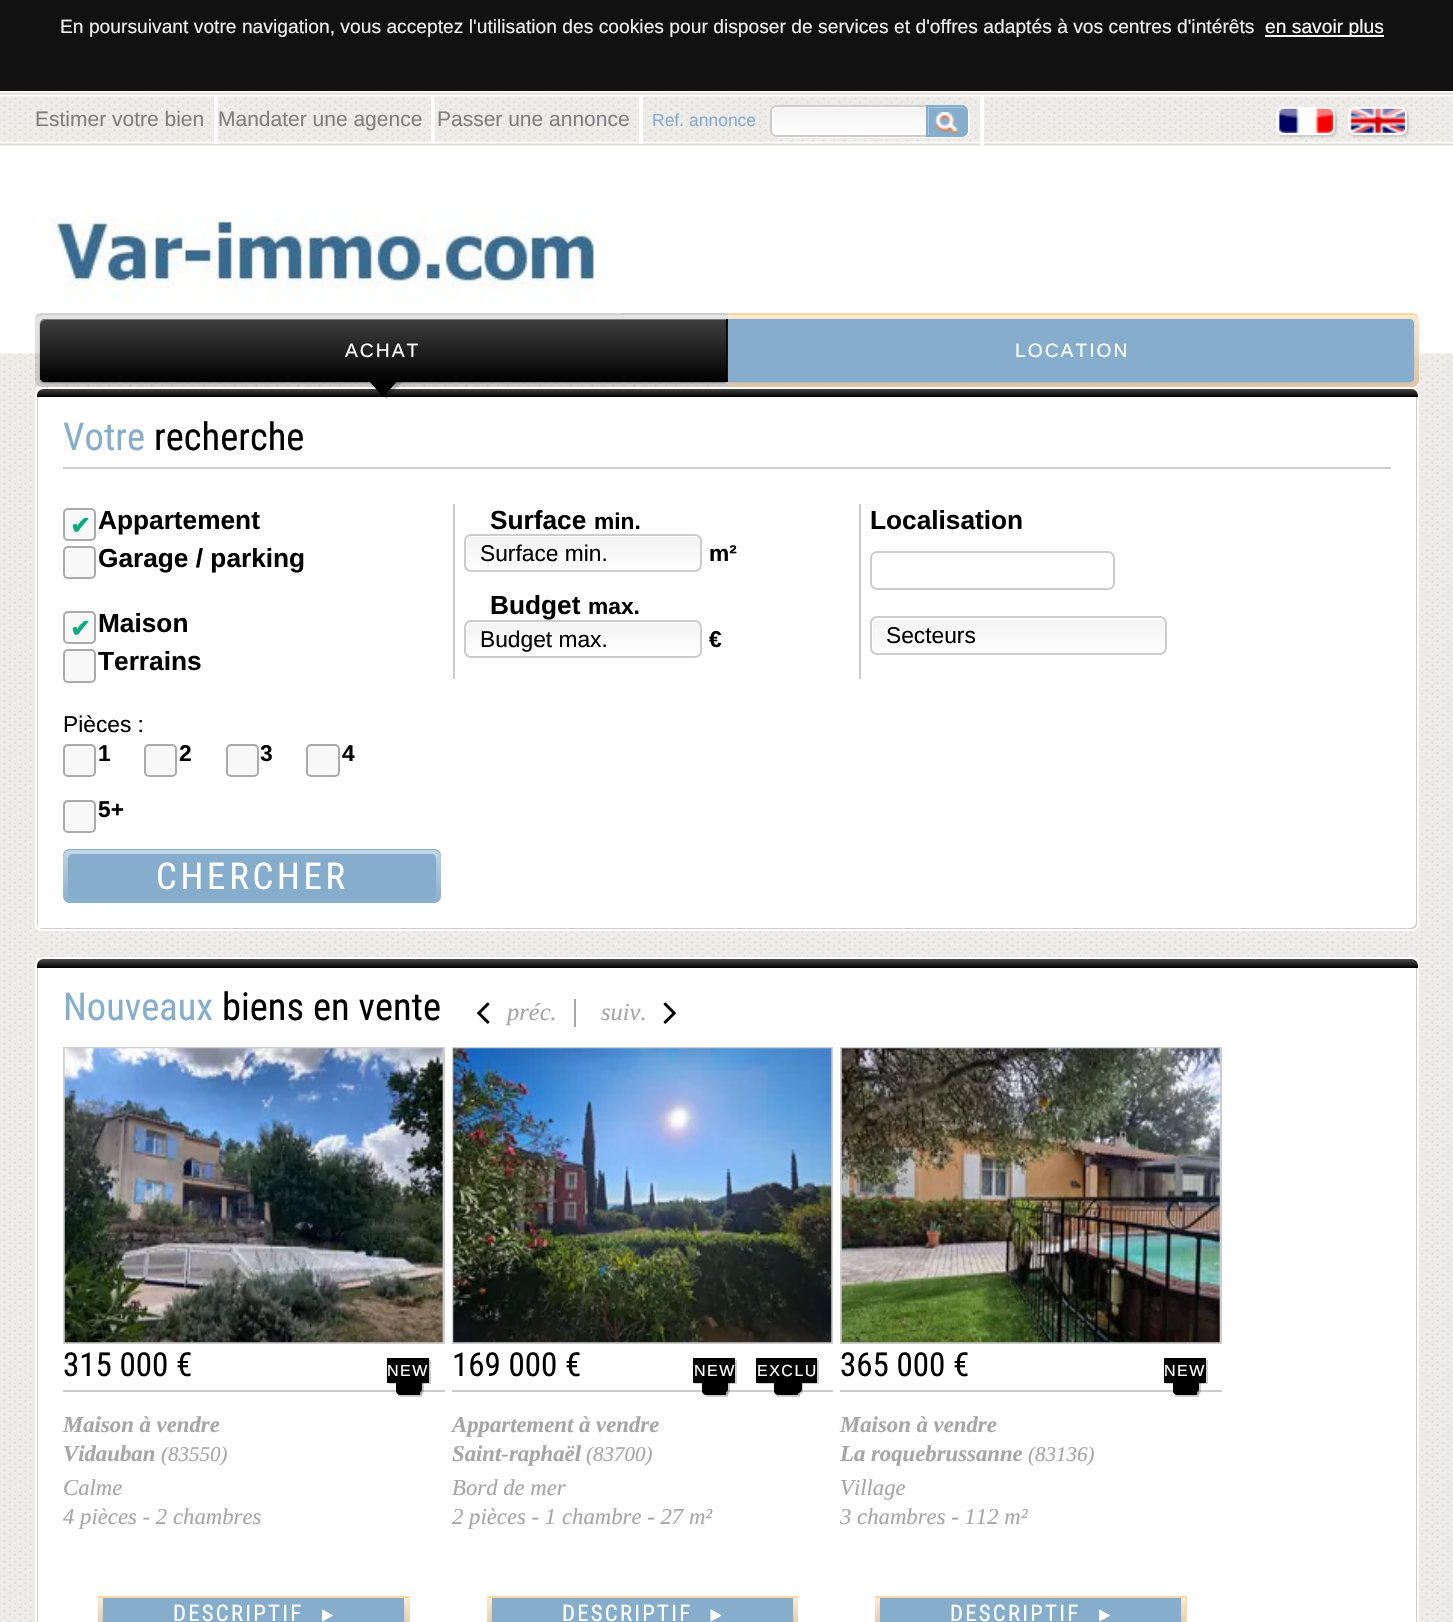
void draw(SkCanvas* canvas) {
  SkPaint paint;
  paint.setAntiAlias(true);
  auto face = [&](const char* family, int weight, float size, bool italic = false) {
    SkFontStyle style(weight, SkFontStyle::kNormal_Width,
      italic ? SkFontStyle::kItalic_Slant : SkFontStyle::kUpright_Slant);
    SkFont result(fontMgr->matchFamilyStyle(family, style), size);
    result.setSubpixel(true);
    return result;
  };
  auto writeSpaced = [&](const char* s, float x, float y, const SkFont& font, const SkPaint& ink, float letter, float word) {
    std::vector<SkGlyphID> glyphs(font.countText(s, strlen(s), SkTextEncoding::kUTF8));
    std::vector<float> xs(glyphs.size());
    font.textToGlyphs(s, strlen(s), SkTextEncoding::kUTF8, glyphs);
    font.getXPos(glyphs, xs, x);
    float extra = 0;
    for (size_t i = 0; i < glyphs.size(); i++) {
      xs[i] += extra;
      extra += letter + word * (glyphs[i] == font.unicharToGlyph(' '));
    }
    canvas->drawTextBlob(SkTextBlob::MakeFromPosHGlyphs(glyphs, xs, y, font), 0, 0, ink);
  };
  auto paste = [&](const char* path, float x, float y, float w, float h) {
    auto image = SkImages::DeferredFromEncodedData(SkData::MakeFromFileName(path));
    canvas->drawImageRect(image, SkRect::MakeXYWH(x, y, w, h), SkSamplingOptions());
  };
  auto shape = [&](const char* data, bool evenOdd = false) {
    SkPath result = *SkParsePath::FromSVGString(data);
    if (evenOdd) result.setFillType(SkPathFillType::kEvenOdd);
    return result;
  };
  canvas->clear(0xffffffff);
  paste("img/1.png", 0, 95, 1453, 1527);
  paint.setColor(0xff111111);
  canvas->drawRect(SkRect::MakeXYWH(0, 0, 1453, 91), paint);
  paint.setColor(0xffffffff);
  canvas->drawRect(SkRect::MakeXYWH(1265, 35, 119, 2), paint);
  paste("img/2.png", 0, 91, 1453, 263);
  {
    const struct { float x, y, w, h; SkColor color; } items[] = {
      {214, 95, 4, 49, 0xffffffff},
      {431, 95, 4, 49, 0xffffffff},
      {639, 95, 4, 49, 0xffffffff},
      {980, 95, 4, 50, 0xffffffff},
    };
    for (auto [x, y, w, h, color] : items) {
      paint.setColor(color);
      canvas->drawRect(SkRect::MakeXYWH(x, y, w, h), paint);
    }
  }
  canvas->drawPath(shape("M774 136C775 137 777 138 779 138H929V107H928V136H777Z"), paint);
  canvas->save();
  canvas->clipPath(shape("M777 105H928V137H777C773 137 770 134 770 130V112C770 108 773 105 777 105Z"), true);
  {
    const SkColor colors[] = {0xfff2f2f2, 0xffffffff};
    const float stops[] = {0, 1};
    const SkPoint ends[] = {{849, 107}, {849, 135}};
    paint.setShader(SkGradientShader::MakeLinear(ends, colors, stops, 2, SkTileMode::kClamp));
    paint.setAlpha(255);
  }
  canvas->drawRect(SkRect::MakeXYWH(770, 107, 156, 28), paint);
  canvas->restore();
  paint.setShader(nullptr);
  paint.setColor(0xffffffff);
  canvas->drawPath(shape("M779 108H926V107H777C774 107 772 109 772 112V130C772 132 773 134 776 135C773 132 774 126 774 122C774 119 772 108 779 108Z"), paint);
  paint.setStroke(true);
  paint.setStrokeWidth(2);
  paint.setColor(0xffcccccc);
  canvas->drawPath(shape("M777 106H927V136H777C773.5 136 771 133.5 771 130V112C771 108.5 773.5 106 777 106Z"), paint);
  paint.setStroke(false);
  paint.setColor(0xffffffff);
  canvas->drawPath(shape("M928 136V138H957C971 138 970 135 970 122C970 118 972 111 966 108C967 109 968 110 968 112V130C968 133 965 136 961 136Z"), paint);
  paint.setColor(0xff86aecc);
  canvas->drawPath(shape("M926 105H961C965 105 968 108 968 112V130C968 134 965 137 961 137H926Z"), paint);
  paint.setColor(0xffaac6db);
  canvas->drawPath(shape("M929 108H957C960.5 108 963 108 965 109C964 107.5 962.5 107 961 107H928V135H929Z"), paint);
  paint.setStroke(true);
  paint.setColor(0xff86aecc);
  canvas->drawPath(shape("M927 106H961C964.5 106 967 108.5 967 112V130C967 133.5 964.5 136 961 136H927Z"), paint);
  paste("img/3.png", 935, 112, 23, 23);
  paint.setStroke(false);
  paint.setColor(0x26000000);
  paint.setMaskFilter(SkMaskFilter::MakeBlur(kNormal_SkBlurStyle, 1));
  canvas->drawRoundRect(SkRect::MakeXYWH(1278, 109, 59, 28), 7, 7, paint);
  paint.setMaskFilter(nullptr);
  paint.setStroke(true);
  paint.setColor(0xffffffff);
  canvas->drawRoundRect(SkRect::MakeXYWH(1277, 108, 57, 26), 6, 6, paint);
  paste("img/4.png", 1278, 108, 56, 25);
  paint.setStroke(false);
  paint.setColor(0x26000000);
  paint.setMaskFilter(SkMaskFilter::MakeBlur(kNormal_SkBlurStyle, 1));
  canvas->drawRoundRect(SkRect::MakeXYWH(1349, 109, 60, 28), 7, 7, paint);
  paint.setMaskFilter(nullptr);
  paint.setStroke(true);
  paint.setColor(0xffffffff);
  canvas->drawRoundRect(SkRect::MakeXYWH(1349, 108, 57, 26), 6, 6, paint);
  paste("img/5.png", 1350, 108, 56, 25);
  paint.setStroke(false);
  paint.setColor(0xccffffff);
  canvas->drawPath(shape("M35 380C35 384 37 389 42 389H728V387H42C38 387 35 384 35 380Z"), paint);
  paint.setColor(0x0d000000);
  canvas->drawRect(SkRect::MakeXYWH(35, 313, 693, 74), paint);
  {
    const SkColor colors[] = {0x0d000000, 0x1a000000};
    const float stops[] = {0, 1};
    const SkPoint ends[] = {{382, 313}, {382, 387}};
    paint.setShader(SkGradientShader::MakeLinear(ends, colors, stops, 2, SkTileMode::kClamp));
    paint.setAlpha(255);
  }
  canvas->drawPath(shape("M42 313H728V387H42C38 387 35 384 35 380V320C35 316 38 313 42 313Z"), paint);
  paint.setShader(nullptr);
  paint.setColor(0x1a000000);
  canvas->drawPath(shape("M42 315H728V313H42C37 313 35 318 35 322C35 318 38 315 42 315Z"), paint);
  paste("img/6.png", 35, 216, 586, 98);
  paint.setColor(0xccffffff);
  canvas->drawPath(shape("M728 387V389H1412C1416 389 1419 386 1419 382C1418 385 1415 387 1412 387Z"), paint);
  paint.setColor(0x80ffd7a6);
  canvas->drawPath(shape("M728 313H1412C1416 313 1419 316 1419 320V380C1419 384 1416 387 1412 387H728Z"), paint);
  {
    const SkColor colors[] = {0x00dcc5a9, 0xffdcc5a9};
    const float stops[] = {0, 1};
    const SkPoint ends[] = {{1074, 313}, {1074, 387}};
    paint.setShader(SkGradientShader::MakeLinear(ends, colors, stops, 2, SkTileMode::kClamp));
    paint.setAlpha(255);
  }
  canvas->drawPath(shape("M728 313H1412C1416 313 1419 316 1419 320V380C1419 384 1416 387 1412 387H728Z"), paint);
  paint.setShader(nullptr);
  paint.setColor(0xffffd7a6);
  canvas->drawPath(shape("M728 315H1412C1416 315 1419 318 1419 322C1419 318 1417 313 1412 313H728Z"), paint);
  paint.setColor(0x66000000);
  paint.setMaskFilter(SkMaskFilter::MakeBlur(kNormal_SkBlurStyle, 1));
  canvas->drawRoundRect(SkRect::MakeXYWH(40, 320, 688, 63), 5, 5, paint);
  paint.setMaskFilter(nullptr);
  {
    const SkColor colors[] = {0xff404040, 0xff010101};
    const float stops[] = {0, 1};
    const SkPoint ends[] = {{383, 318}, {383, 382}};
    paint.setShader(SkGradientShader::MakeLinear(ends, colors, stops, 2, SkTileMode::kClamp));
    paint.setAlpha(255);
  }
  canvas->drawPath(shape("M45 319H728V382H45C42 382 40 380 40 377V324C40 321 42 319 45 319Z"), paint);
  paint.setShader(nullptr);
  paint.setColor(0xff000000);
  canvas->drawPath(shape("M40 374V377C40 380 42 382 45 382H726V380H46C43 380 40 377 40 374Z"), paint);
  paint.setColor(0x4dffffff);
  canvas->drawPath(shape("M46 320H726V319H45C42 319 40 321 40 324V326C40 323 43 320 46 320Z"), paint);
  paint.setColor(0xff000000);
  canvas->drawRect(SkRect::MakeXYWH(726, 319, 2, 63), paint);
  paint.setColor(0xffffffff);
  canvas->drawRoundRect(SkRect::MakeXYWH(35, 387, 1384, 544), 7, 7, paint);
  paint.setColor(0xffcccccc);
  canvas->drawPath(shape("M39 928C40 929 41 929 42 929H1413C1416 929 1418 927 1418 924V394C1418 392 1417 390 1415 390L1416 392V922C1416 925 1413 928 1410 928Z"), paint);
  canvas->drawPath(shape("M44 390H1414C1415 390 1417 391 1417 392C1417 390 1415 389 1413 389H42C39 389 37 391 37 394V924C37 925 37 926 38 927V396C38 393 41 390 44 390Z"), paint);
  paint.setStroke(true);
  paint.setColor(0xffffffff);
  canvas->drawRoundRect(SkRect::MakeXYWH(36, 388, 1382, 542), 6, 6, paint);
  paint.setStroke(false);
  {
    const SkColor colors[] = {0xff4d4d4d, 0xff000000};
    const float stops[] = {0, 1};
    const SkPoint ends[] = {{727, 388}, {727, 397}};
    paint.setShader(SkGradientShader::MakeLinear(ends, colors, stops, 2, SkTileMode::kClamp));
    paint.setAlpha(255);
  }
  canvas->drawPath(shape("M44 389H1411C1415 389 1418 392 1418 396V397H37V396C37 392 40 389 44 389Z"), paint);
  paint.setShader(nullptr);
  paint.setColor(0x33000000);
  canvas->drawPath(shape("M367.5 378H406L386.5 399Z"), paint);
  paint.setColor(0xff000000);
  canvas->drawPath(shape("M369.5 381.5H397L383 397Z"), paint);
  paint.setColor(0x8086aecc);
  paint.setMaskFilter(SkMaskFilter::MakeBlur(kNormal_SkBlurStyle, 1));
  canvas->drawRoundRect(SkRect::MakeXYWH(728, 320, 686, 63), 5, 5, paint);
  paint.setMaskFilter(nullptr);
  paint.setColor(0xff86aecc);
  canvas->drawPath(shape("M728 319H1409C1412 319 1414 321 1414 324V377C1414 380 1412 382 1409 382H728Z"), paint);
  canvas->drawPath(shape("M730 380V382H1409C1412 382 1414 380 1414 377V374C1414 377 1412 380 1409 380Z"), paint);
  canvas->drawPath(shape("M730 320H1409C1412 320 1414 323 1414 326V324C1414 321 1412 319 1409 319H730Z"), paint);
  paint.setColor(0xffcccccc);
  canvas->drawRect(SkRect::MakeXYWH(63, 467, 1328, 2), paint);
  paint.setColor(0xfff8f8f8);
  canvas->drawRoundRect(SkRect::MakeXYWH(64, 509, 31, 31), 4, 4, paint);
  paint.setStroke(true);
  paint.setColor(0xffaaaaaa);
  canvas->drawRoundRect(SkRect::MakeXYWH(64, 509, 31, 31), 4, 4, paint);
  paint.setStroke(false);
  paint.setColor(0xfff8f8f8);
  canvas->drawRoundRect(SkRect::MakeXYWH(64, 547, 31, 31), 4, 4, paint);
  paint.setStroke(true);
  paint.setColor(0xffaaaaaa);
  canvas->drawRoundRect(SkRect::MakeXYWH(64, 547, 31, 31), 4, 4, paint);
  paint.setStroke(false);
  paint.setColor(0xfff8f8f8);
  canvas->drawRoundRect(SkRect::MakeXYWH(64, 612, 31, 31), 4, 4, paint);
  paint.setStroke(true);
  paint.setColor(0xffaaaaaa);
  canvas->drawRoundRect(SkRect::MakeXYWH(64, 612, 31, 31), 4, 4, paint);
  paint.setStroke(false);
  paint.setColor(0xfff8f8f8);
  canvas->drawRoundRect(SkRect::MakeXYWH(64, 650, 31, 32), 4, 4, paint);
  paint.setStroke(true);
  paint.setColor(0xffaaaaaa);
  canvas->drawRoundRect(SkRect::MakeXYWH(64, 650, 31, 32), 4, 4, paint);
  paint.setStroke(false);
  paint.setColor(0xfff8f8f8);
  canvas->drawRoundRect(SkRect::MakeXYWH(64, 745, 31, 31), 4, 4, paint);
  paint.setStroke(true);
  paint.setColor(0xffaaaaaa);
  canvas->drawRoundRect(SkRect::MakeXYWH(64, 745, 31, 31), 4, 4, paint);
  paint.setStroke(false);
  paint.setColor(0xfff8f8f8);
  canvas->drawRoundRect(SkRect::MakeXYWH(145, 745, 31, 31), 4, 4, paint);
  paint.setStroke(true);
  paint.setColor(0xffaaaaaa);
  canvas->drawRoundRect(SkRect::MakeXYWH(145, 745, 31, 31), 4, 4, paint);
  paint.setStroke(false);
  paint.setColor(0xfff8f8f8);
  canvas->drawRoundRect(SkRect::MakeXYWH(227, 745, 31, 31), 4, 4, paint);
  paint.setStroke(true);
  paint.setColor(0xffaaaaaa);
  canvas->drawRoundRect(SkRect::MakeXYWH(227, 745, 31, 31), 4, 4, paint);
  paint.setStroke(false);
  paint.setColor(0xfff8f8f8);
  canvas->drawRoundRect(SkRect::MakeXYWH(307, 745, 32, 31), 4, 4, paint);
  paint.setStroke(true);
  paint.setColor(0xffaaaaaa);
  canvas->drawRoundRect(SkRect::MakeXYWH(307, 745, 32, 31), 4, 4, paint);
  paint.setStroke(false);
  paint.setColor(0xfff8f8f8);
  canvas->drawRoundRect(SkRect::MakeXYWH(64, 801, 31, 31), 4, 4, paint);
  paint.setStroke(true);
  paint.setColor(0xffaaaaaa);
  canvas->drawRoundRect(SkRect::MakeXYWH(64, 801, 31, 31), 4, 4, paint);
  paint.setStroke(false);
  paint.setColor(0xffcccccc);
  canvas->drawRect(SkRect::MakeXYWH(859, 504, 2, 175), paint);
  canvas->drawRect(SkRect::MakeXYWH(453, 504, 2, 175), paint);
  canvas->save();
  canvas->clipPath(shape("M471 534H695C699 534 702 537 702 541V565C702 569 699 572 695 572H471C467 572 464 569 464 565V541C464 537 467 534 471 534Z"), true);
  {
    const SkColor colors[] = {0xfff2f2f2, 0xffffffff};
    const float stops[] = {0, 1};
    const SkPoint ends[] = {{583, 536}, {583, 571}};
    paint.setShader(SkGradientShader::MakeLinear(ends, colors, stops, 2, SkTileMode::kClamp));
    paint.setAlpha(255);
  }
  canvas->drawRect(SkRect::MakeXYWH(464, 536, 238, 35), paint);
  canvas->restore();
  paint.setShader(nullptr);
  paint.setColor(0xffffffff);
  canvas->drawPath(shape("M472 537H696L699 538C698 537 697 536 695 536H471C468 536 466 538 466 541V566C466 568 467 569 468 570C466 567 467 558 467 554C467 551 465 537 472 537Z"), paint);
  paint.setStroke(true);
  paint.setColor(0xffcccccc);
  canvas->drawRoundRect(SkRect::MakeXYWH(465, 535, 236, 36), 6, 6, paint);
  canvas->save();
  canvas->clipPath(shape("M471 620H695C699 620 702 623 702 627V651C702 655 699 658 695 658H471C467 658 464 655 464 651V627C464 623 467 620 471 620Z"), true);
  paint.setStroke(false);
  {
    const SkColor colors[] = {0xfff2f2f2, 0xffffffff};
    const float stops[] = {0, 1};
    const SkPoint ends[] = {{583, 621}, {583, 656}};
    paint.setShader(SkGradientShader::MakeLinear(ends, colors, stops, 2, SkTileMode::kClamp));
    paint.setAlpha(255);
  }
  canvas->drawRect(SkRect::MakeXYWH(464, 621, 238, 35), paint);
  canvas->restore();
  paint.setShader(nullptr);
  paint.setColor(0xffffffff);
  canvas->drawPath(shape("M472 623H696L700 624C699 622 697 621 695 621H471C468 621 466 623 466 626V651C466 652 466 653 467 654V632C467 629 467 623 472 623Z"), paint);
  paint.setStroke(true);
  paint.setColor(0xffcccccc);
  canvas->drawRoundRect(SkRect::MakeXYWH(465, 621, 236, 36), 6, 6, paint);
  canvas->drawRoundRect(SkRect::MakeXYWH(871, 552, 243, 37), 6, 6, paint);
  canvas->save();
  canvas->clipPath(shape("M877 616H1160C1164 616 1167 619 1167 623V648C1167 652 1164 655 1160 655H877C873 655 870 652 870 648V623C870 619 873 616 877 616Z"), true);
  paint.setStroke(false);
  {
    const SkColor colors[] = {0xfff2f2f2, 0xffffffff};
    const float stops[] = {0, 1};
    const SkPoint ends[] = {{1019, 618}, {1019, 653}};
    paint.setShader(SkGradientShader::MakeLinear(ends, colors, stops, 2, SkTileMode::kClamp));
    paint.setAlpha(255);
  }
  canvas->drawRect(SkRect::MakeXYWH(870, 618, 297, 35), paint);
  canvas->restore();
  paint.setShader(nullptr);
  paint.setColor(0xffffffff);
  canvas->drawPath(shape("M878 620H1163L1166 622C1165 619 1163 618 1161 618H877C874 618 872 620 872 623V648C872 650 873 651 874 652C872 649 873 641 873 637C873 633 871 620 878 620Z"), paint);
  paint.setStroke(true);
  paint.setColor(0xffcccccc);
  canvas->drawRoundRect(SkRect::MakeXYWH(871, 617, 295, 37), 6, 6, paint);
  paint.setStroke(false);
  paint.setColor(0xffc3d7e6);
  canvas->drawRoundRect(SkRect::MakeXYWH(63, 849, 378, 54), 7, 7, paint);
  {
    const SkColor colors[] = {0x0086aecc, 0xff86aecc};
    const float stops[] = {0, 1};
    const SkPoint ends[] = {{252, 849}, {252, 903}};
    paint.setShader(SkGradientShader::MakeLinear(ends, colors, stops, 2, SkTileMode::kClamp));
    paint.setAlpha(255);
  }
  canvas->drawRoundRect(SkRect::MakeXYWH(63, 849, 378, 54), 7, 7, paint);
  paint.setShader(nullptr);
  paint.setColor(0xff86aecc);
  canvas->drawPath(shape("M70 850H434C438 850 441 854 441 858V856C441 852 438 849 434 849H70C66 849 63 852 63 856V858C63 854 66 850 70 850Z"), paint);
  paint.setColor(0x8086aecc);
  paint.setMaskFilter(SkMaskFilter::MakeBlur(kNormal_SkBlurStyle, 1));
  canvas->drawRoundRect(SkRect::MakeXYWH(68, 856, 368, 44), 5, 5, paint);
  paint.setMaskFilter(nullptr);
  paint.setColor(0xff86aecc);
  canvas->drawRoundRect(SkRect::MakeXYWH(68, 854, 368, 44), 5, 5, paint);
  canvas->drawPath(shape("M74 856H430C433 856 436 858 436 861C436 858 435 854 431 854H73C69 854 68 858 68 861C68 858 71 856 74 856Z"), paint);
  paint.setColor(0xffffffff);
  canvas->drawRoundRect(SkRect::MakeXYWH(35, 957, 1384, 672), 7, 7, paint);
  paint.setColor(0xffcccccc);
  canvas->drawPath(shape("M38 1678C39 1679 40 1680 42 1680H1413C1416 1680 1418 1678 1418 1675V964C1418 962 1417 960 1415 959C1415 960 1416 961 1416 962V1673C1416 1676 1413 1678 1410 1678H40Z"), paint);
  paint.setColor(0x33000000);
  canvas->drawPath(shape("M44 961H1414C1416 961 1417 962 1418 963C1417 960 1415 959 1413 959H42C39 959 37 961 37 964V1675C37 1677 38 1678 39 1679L38 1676V966C38 963 41 961 44 961Z"), paint);
  paint.setStroke(true);
  paint.setColor(0xffffffff);
  canvas->drawRoundRect(SkRect::MakeXYWH(36, 958, 1382, 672), 6, 6, paint);
  paint.setStroke(false);
  {
    const SkColor colors[] = {0xff4d4d4d, 0xff000000};
    const float stops[] = {0, 1};
    const SkPoint ends[] = {{727, 959}, {727, 968}};
    paint.setShader(SkGradientShader::MakeLinear(ends, colors, stops, 2, SkTileMode::kClamp));
    paint.setAlpha(255);
  }
  canvas->drawPath(shape("M44 959H1411C1415 959 1418 962 1418 966V968H37V966C37 962 40 959 44 959Z"), paint);
  paint.setShader(nullptr);
  paint.setColor(0xffa6a6a6);
  canvas->drawRect(SkRect::MakeXYWH(574, 999, 2, 28), paint);
  paste("img/7.png", 477, 1002, 13, 22);
  paste("img/8.png", 663, 1002, 13, 22);
  paint.setStroke(true);
  paint.setColor(0xffcccccc);
  canvas->drawRect(SkRect::MakeXYWH(64, 1048, 380, 295), paint);
  paste("img/9.png", 64, 1048, 379, 295);
  paint.setStroke(false);
  canvas->drawRect(SkRect::MakeXYWH(63, 1390, 382, 2), paint);
  paint.setColor(0x33000000);
  canvas->drawPath(shape("M397 1394.5C397.5 1396 399 1397 401 1397H422V1379H420V1395H399Z"), paint);
  paint.setColor(0xff000000);
  canvas->drawPath(shape("M400 1377H420V1395H400C398 1395 396 1393 396 1391V1381C396 1379 398 1377 400 1377Z"), paint);
  paint.setColor(0x33000000);
  canvas->drawPath(shape("M389 1382V1384H431V1360H429V1382Z"), paint);
  paint.setColor(0xff000000);
  canvas->drawRect(SkRect::MakeXYWH(387, 1358, 42, 25), paint);
  paint.setColor(0x33000000);
  canvas->drawPath(shape("M403 1393V1395H414.5C421.5 1395 424 1396 424 1388.5C424 1385.5 425 1380.5 421.5 1379.5C422.5 1381 422 1384.5 422 1386.5C422 1394 420 1393 413 1393Z"), paint);
  paint.setColor(0xff000000);
  canvas->drawPath(shape("M401 1377H418C420 1377 422 1379 422 1381V1389C422 1391 420 1393 418 1393H401Z"), paint);
  {
    const SkColor colors[] = {0xffffebd3, 0xffdcc5a9};
    const float stops[] = {0, 1};
    const SkPoint ends[] = {{254, 1596}, {254, 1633}};
    paint.setShader(SkGradientShader::MakeLinear(ends, colors, stops, 2, SkTileMode::kClamp));
    paint.setAlpha(255);
  }
  canvas->drawRect(SkRect::MakeXYWH(98, 1598, 312, 24), paint);
  paint.setShader(nullptr);
  paint.setColor(0xffffd7a6);
  canvas->drawRect(SkRect::MakeXYWH(98, 1596, 312, 2), paint);
  paint.setColor(0x8086aecc);
  paint.setMaskFilter(SkMaskFilter::MakeBlur(kNormal_SkBlurStyle, 1));
  canvas->drawRoundRect(SkRect::MakeXYWH(103, 1600, 301, 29), 5, 5, paint);
  paint.setMaskFilter(nullptr);
  paint.setColor(0xff86aecc);
  canvas->drawRect(SkRect::MakeXYWH(103, 1598, 301, 24), paint);
  paste("img/10.png", 322, 1609, 11, 13);
  paint.setStroke(true);
  paint.setColor(0xffcccccc);
  canvas->drawRect(SkRect::MakeXYWH(453, 1048, 379, 295), paint);
  paste("img/11.png", 453, 1048, 379, 295);
  paint.setStroke(false);
  canvas->drawRect(SkRect::MakeXYWH(452, 1390, 381, 2), paint);
  paint.setColor(0x33000000);
  canvas->drawPath(shape("M704.5 1394.5C705 1396 706.5 1397 708 1397H728V1379H726V1395Z"), paint);
  paint.setColor(0xff000000);
  canvas->drawPath(shape("M706 1377H726V1395H706C704 1395 702 1393 702 1391V1381C702 1379 704 1377 706 1377Z"), paint);
  paint.setColor(0x33000000);
  canvas->drawPath(shape("M695 1382V1384H737V1360H735V1382Z"), paint);
  paint.setColor(0xff000000);
  canvas->drawRect(SkRect::MakeXYWH(693, 1358, 42, 25), paint);
  paint.setColor(0x33000000);
  canvas->drawPath(shape("M709 1393V1395H726C728 1395 730 1393 730 1391V1383C730 1381.5 729 1380 727.5 1379.5C728.5 1381.5 728 1384.5 728 1386.5C728 1394 726.5 1393 719.5 1393Z"), paint);
  paint.setColor(0xff000000);
  canvas->drawPath(shape("M707 1377H724C726 1377 728 1379 728 1381V1389C728 1391 726 1393 724 1393H707Z"), paint);
  paint.setColor(0x33000000);
  canvas->drawPath(shape("M775 1394.5C775.5 1396 777 1397 779 1397H800V1379H798V1395H777Z"), paint);
  paint.setColor(0xff000000);
  canvas->drawPath(shape("M778 1377H798V1395H778C776 1395 774 1393 774 1391V1381C774 1379 776 1377 778 1377Z"), paint);
  paint.setColor(0x33000000);
  canvas->drawPath(shape("M758 1382V1384H819V1360H817V1382Z"), paint);
  paint.setColor(0xff000000);
  canvas->drawRect(SkRect::MakeXYWH(756, 1358, 61, 25), paint);
  paint.setColor(0x33000000);
  canvas->drawPath(shape("M782 1393V1395H796C803 1395 803 1393.5 803 1387C803 1384.5 803.5 1381.5 801.5 1380V1386.5C801.5 1394 799.5 1393 792.5 1393Z"), paint);
  paint.setColor(0xff000000);
  canvas->drawPath(shape("M781 1377H798C800 1377 802 1379 802 1381V1389C802 1391 800 1393 798 1393H781Z"), paint);
  {
    const SkColor colors[] = {0xffffebd3, 0xffdcc5a9};
    const float stops[] = {0, 1};
    const SkPoint ends[] = {{642, 1596}, {642, 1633}};
    paint.setShader(SkGradientShader::MakeLinear(ends, colors, stops, 2, SkTileMode::kClamp));
    paint.setAlpha(255);
  }
  canvas->drawRect(SkRect::MakeXYWH(487, 1598, 311, 24), paint);
  paint.setShader(nullptr);
  paint.setColor(0xffffd7a6);
  canvas->drawRect(SkRect::MakeXYWH(487, 1596, 311, 2), paint);
  paint.setColor(0x8086aecc);
  paint.setMaskFilter(SkMaskFilter::MakeBlur(kNormal_SkBlurStyle, 1));
  canvas->drawRoundRect(SkRect::MakeXYWH(492, 1600, 301, 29), 5, 5, paint);
  paint.setMaskFilter(nullptr);
  paint.setColor(0xff86aecc);
  canvas->drawRect(SkRect::MakeXYWH(492, 1598, 301, 24), paint);
  paste("img/12.png", 710, 1609, 12, 13);
  paint.setStroke(true);
  paint.setColor(0xffcccccc);
  canvas->drawRect(SkRect::MakeXYWH(841, 1048, 380, 295), paint);
  paste("img/13.png", 841, 1048, 379, 295);
  paint.setStroke(false);
  canvas->drawRect(SkRect::MakeXYWH(840, 1390, 382, 2), paint);
  paint.setColor(0x33000000);
  canvas->drawPath(shape("M1174 1394.5C1174.5 1396 1176 1397 1178 1397H1199V1379H1197V1395H1176Z"), paint);
  paint.setColor(0xff000000);
  canvas->drawPath(shape("M1177 1377H1197V1395H1177C1175 1395 1173 1393 1173 1391V1381C1173 1379 1175 1377 1177 1377Z"), paint);
  paint.setColor(0x33000000);
  canvas->drawPath(shape("M1166 1382V1384H1208V1360H1206V1382Z"), paint);
  paint.setColor(0xff000000);
  canvas->drawRect(SkRect::MakeXYWH(1164, 1358, 42, 25), paint);
  paint.setColor(0x33000000);
  canvas->drawPath(shape("M1180 1393V1395H1191.5C1198.5 1395 1201 1396 1201 1388.5C1201 1385.5 1202 1380.5 1198.5 1379.5C1199.5 1381 1199 1384.5 1199 1386.5C1199 1394 1197 1393 1190 1393Z"), paint);
  paint.setColor(0xff000000);
  canvas->drawPath(shape("M1178 1377H1195C1197 1377 1199 1379 1199 1381V1389C1199 1391 1197 1393 1195 1393H1178Z"), paint);
  {
    const SkColor colors[] = {0xffffebd3, 0xffdcc5a9};
    const float stops[] = {0, 1};
    const SkPoint ends[] = {{1031, 1596}, {1031, 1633}};
    paint.setShader(SkGradientShader::MakeLinear(ends, colors, stops, 2, SkTileMode::kClamp));
    paint.setAlpha(255);
  }
  canvas->drawRect(SkRect::MakeXYWH(875, 1598, 311, 24), paint);
  paint.setShader(nullptr);
  paint.setColor(0xffffd7a6);
  canvas->drawPath(shape("M875 1598H1186V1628L1185 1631C1186 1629 1187 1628 1187 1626V1596H875Z"), paint);
  paint.setColor(0x8086aecc);
  paint.setMaskFilter(SkMaskFilter::MakeBlur(kNormal_SkBlurStyle, 1));
  canvas->drawRoundRect(SkRect::MakeXYWH(880, 1600, 301, 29), 5, 5, paint);
  paint.setMaskFilter(nullptr);
  paint.setColor(0xff86aecc);
  canvas->drawRect(SkRect::MakeXYWH(880, 1598, 301, 24), paint);
  paste("img/10.png", 1099, 1609, 11, 13);
  auto f0 = face("Liberation Sans", 400, 19.25f);
  paint.setColor(0xffeeeeee);
  canvas->drawString("En poursuivant votre navigation, vous acceptez l'utilisation des cookies pour disposer de services et d'offres adaptés à vos centres d'intérêts", 60, 33, f0, paint);
  paint.setColor(0xffffffff);
  canvas->drawString("en savoir plus", 1265, 33, f0, paint);
  auto f1 = face("Liberation Sans", 400, 21);
  paint.setColor(0xff808080);
  {
    const struct { const char* s; float x, y; } items[] = {
      {"Estimer votre bien", 35, 126},
      {"Mandater une agence", 218, 126},
      {"Passer une annonce", 437, 126},
    };
    for (auto [s, x, y] : items) {
      canvas->drawString(s, x, y, f1, paint);
    }
  }
  auto f2 = face("Liberation Sans", 400, 17.5f);
  paint.setColor(0xff86aecc);
  canvas->drawString("Ref. annonce", 652, 126, f2, paint);
  paint.setColor(0xffffffff);
  writeSpaced("ACHAT", 345, 357, f0, paint, 2, 0);
  writeSpaced("LOCATION", 1015, 357, f0, paint, 2, 0);
  auto f3 = face("Roboto Condensed", 400, 38.5f);
  paint.setColor(0xff86aecc);
  canvas->drawString("Votre", 63, 450, f3, paint);
  paint.setColor(0xff000000);
  canvas->drawString("recherche", 154, 450, f3, paint);
  auto f4 = face("Liberation Sans", 700, 26.25f);
  canvas->drawString("Appartement", 98, 529, f4, paint);
  auto f5 = face("DejaVu Sans", 700, 24.5f);
  paint.setColor(0xff09ad7e);
  canvas->drawString("✔", 70, 534, f5, paint);
  paint.setColor(0xff000000);
  canvas->drawString("Garage / parking", 98, 567, f4, paint);
  canvas->drawString("Maison", 98, 632, f4, paint);
  paint.setColor(0xff09ad7e);
  canvas->drawString("✔", 70, 637, f5, paint);
  paint.setColor(0xff000000);
  canvas->drawString("Terrains", 98, 670, f4, paint);
  auto f6 = face("Liberation Sans", 400, 22.75f);
  canvas->drawString("Pièces :", 63, 732, f6, paint);
  auto f7 = face("Liberation Sans", 700, 22.75f);
  {
    const struct { const char* s; float x, y; } items[] = {
      {"1", 98, 761},
      {"2", 179, 761},
      {"3", 260, 761},
      {"4", 342, 761},
      {"5+", 98, 817},
    };
    for (auto [s, x, y] : items) {
      canvas->drawString(s, x, y, f7, paint);
    }
  }
  canvas->drawString("Surface", 490, 529, f4, paint);
  canvas->drawString("min.", 594, 529, f7, paint);
  canvas->drawString("Surface min.", 480, 561, f6, paint);
  canvas->drawString("m²", 709, 561, f7, paint);
  canvas->drawString("Budget", 490, 614, f4, paint);
  canvas->drawString("max.", 588, 614, f7, paint);
  canvas->drawString("Budget max.", 480, 647, f6, paint);
  canvas->drawString("€", 709, 647, f7, paint);
  canvas->drawString("Localisation", 870, 529, f4, paint);
  canvas->drawString("Secteurs", 886, 643, f6, paint);
  auto f8 = face("Roboto Condensed", 400, 36.75f);
  paint.setColor(0xffffffff);
  writeSpaced("CHERCHER", 156, 889, f8, paint, 3.75f, 0);
  paint.setColor(0xff86aecc);
  canvas->drawString("Nouveaux", 63, 1020, f3, paint);
  paint.setColor(0xff000000);
  canvas->drawString("biens en vente", 222, 1020, f3, paint);
  auto f9 = face("Liberation Serif", 400, 24.5f, true);
  paint.setColor(0xffa6a6a6);
  canvas->drawString("préc.", 507, 1020, f9, paint);
  canvas->drawString("suiv.", 601, 1020, f9, paint);
  auto f10 = face("Roboto Condensed", 400, 33);
  paint.setColor(0xff000000);
  canvas->drawString("315 000 €", 63, 1376, f10, paint);
  auto f11 = face("Liberation Sans", 400, 16);
  paint.setColor(0xffffffff);
  writeSpaced("NEW", 387, 1376, f11, paint, 1.5f, 0);
  auto f12 = face("Liberation Serif", 700, 22.75f, true);
  paint.setColor(0xffa6a6a6);
  canvas->drawString("Maison à vendre", 63, 1432, f12, paint);
  canvas->drawString("Vidauban", 63, 1461, f12, paint);
  auto f13 = face("Liberation Serif", 400, 21, true);
  canvas->drawString("(83550)", 161, 1461, f13, paint);
  auto f14 = face("Liberation Serif", 400, 22.75f, true);
  canvas->drawString("Calme", 63, 1495, f14, paint);
  canvas->drawString("4 pièces - 2 chambres", 63, 1524, f14, paint);
  auto f15 = face("Roboto Condensed", 400, 22.75f);
  paint.setColor(0xffffffff);
  writeSpaced("DESCRIPTIF", 173, 1621, f15, paint, 2.25f, 0);
  paint.setColor(0xff000000);
  canvas->drawString("169 000 €", 452, 1376, f10, paint);
  paint.setColor(0xffffffff);
  writeSpaced("NEW", 694, 1376, f11, paint, 1.5f, 0);
  writeSpaced("EXCLU", 757, 1376, f11, paint, 1.5f, 0);
  paint.setColor(0xffa6a6a6);
  canvas->drawString("Appartement à vendre", 452, 1432, f12, paint);
  canvas->drawString("Saint-raphaël", 452, 1461, f12, paint);
  canvas->drawString("(83700)", 586, 1461, f13, paint);
  canvas->drawString("Bord de mer", 452, 1495, f14, paint);
  canvas->drawString("2 pièces - 1 chambre - 27 m²", 452, 1524, f14, paint);
  paint.setColor(0xffffffff);
  writeSpaced("DESCRIPTIF", 562, 1621, f15, paint, 2.25f, 0);
  paint.setColor(0xff000000);
  canvas->drawString("365 000 €", 840, 1376, f10, paint);
  paint.setColor(0xffffffff);
  writeSpaced("NEW", 1164, 1376, f11, paint, 1.5f, 0);
  paint.setColor(0xffa6a6a6);
  canvas->drawString("Maison à vendre", 840, 1432, f12, paint);
  canvas->drawString("La roquebrussanne", 840, 1461, f12, paint);
  canvas->drawString("(83136)", 1028, 1461, f13, paint);
  canvas->drawString("Village", 840, 1495, f14, paint);
  canvas->drawString("3 chambres - 112 m²", 840, 1524, f14, paint);
  paint.setColor(0xffffffff);
  writeSpaced("DESCRIPTIF", 950, 1621, f15, paint, 2.25f, 0);
}
